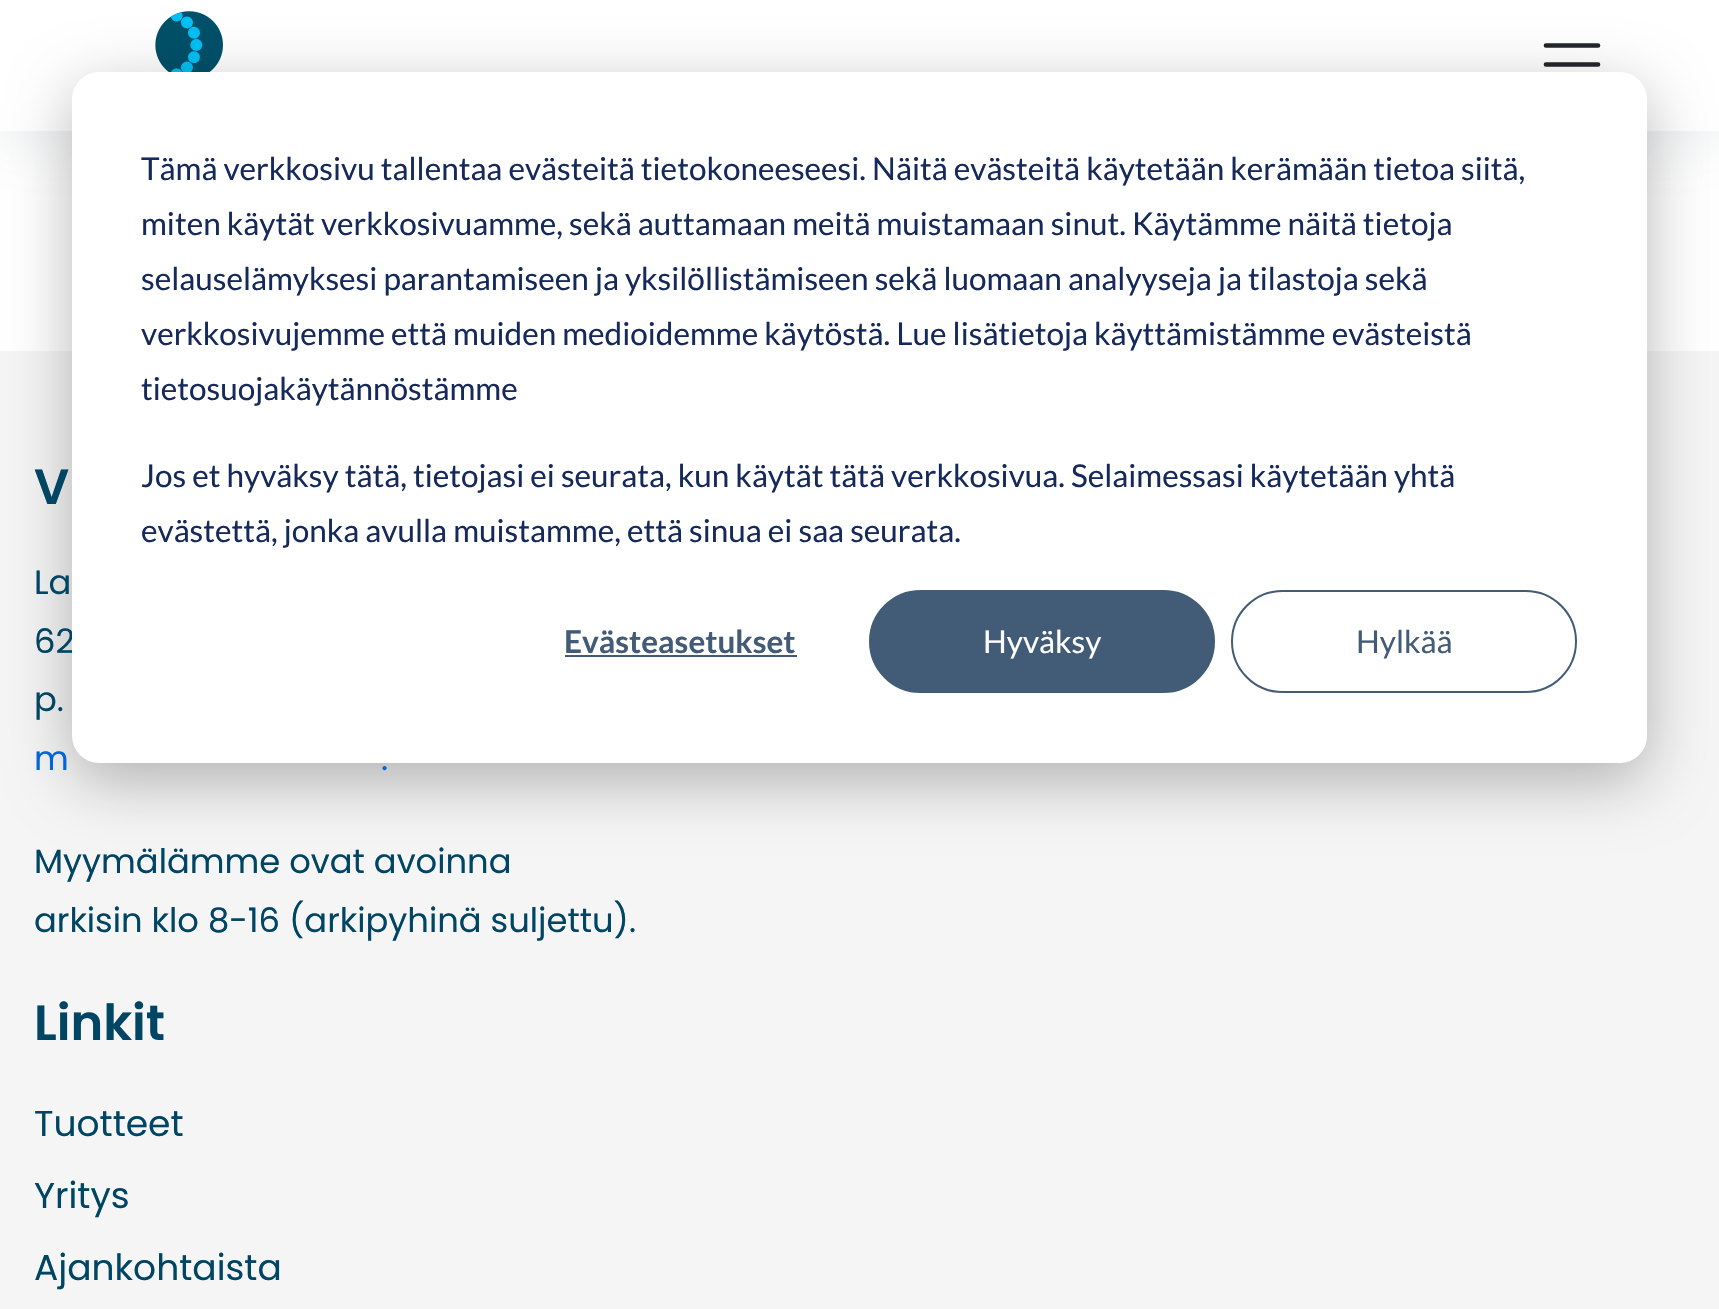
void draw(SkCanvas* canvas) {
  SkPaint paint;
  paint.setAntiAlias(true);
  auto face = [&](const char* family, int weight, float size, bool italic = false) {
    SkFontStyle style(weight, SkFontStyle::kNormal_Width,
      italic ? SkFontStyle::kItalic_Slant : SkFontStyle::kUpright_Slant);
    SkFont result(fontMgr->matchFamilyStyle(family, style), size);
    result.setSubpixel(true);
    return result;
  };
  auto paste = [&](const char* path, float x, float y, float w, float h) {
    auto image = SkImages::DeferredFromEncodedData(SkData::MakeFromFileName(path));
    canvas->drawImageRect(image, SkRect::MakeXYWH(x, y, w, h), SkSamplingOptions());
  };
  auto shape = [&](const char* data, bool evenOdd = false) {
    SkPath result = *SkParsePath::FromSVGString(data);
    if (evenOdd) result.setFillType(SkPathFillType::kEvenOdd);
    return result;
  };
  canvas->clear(0xffffffff);
  paint.setColor(0x3377838f);
  paint.setMaskFilter(SkMaskFilter::MakeBlur(kNormal_SkBlurStyle, 34));
  canvas->drawRect(SkRect::MakeXYWH(0, 0, 1719, 131), paint);
  paint.setMaskFilter(nullptr);
  paint.setColor(0xffffffff);
  canvas->drawRect(SkRect::MakeXYWH(0, 0, 1719, 131), paint);
  paste("img/1.png", 155, 11, 68, 61);
  paint.setStroke(true);
  paint.setStrokeWidth(4.7f);
  paint.setStrokeCap(SkPaint::kRound_Cap);
  paint.setColor(0xff23262a);
  canvas->drawPath(shape("M1546 45.5H1598M1546 64.5H1598M1546 83.5H1598"), paint);
  paint.setStroke(false);
  paint.setColor(0xfff5f5f5);
  canvas->drawRect(SkRect::MakeXYWH(0, 351, 1719, 958), paint);
  paint.setColor(0x47000000);
  paint.setMaskFilter(SkMaskFilter::MakeBlur(kNormal_SkBlurStyle, 31.5f));
  canvas->drawRoundRect(SkRect::MakeXYWH(72, 90, 1575, 691), 27, 27, paint);
  paint.setMaskFilter(nullptr);
  auto f0 = face("Poppins", 600, 49.5f);
  paint.setColor(0xff004664);
  canvas->drawString("V", 34, 504, f0, paint);
  auto f1 = face("Poppins", 400, 33.75f);
  canvas->drawString("La", 34, 594, f1, paint);
  canvas->drawString("62", 34, 653, f1, paint);
  paint.setColor(0xffffffff);
  canvas->drawRoundRect(SkRect::MakeXYWH(72, 72, 1575, 691), 27, 27, paint);
  paint.setStroke(true);
  paint.setStrokeWidth(2);
  paint.setStrokeCap(SkPaint::kButt_Cap);
  paint.setColor(0xff425b76);
  canvas->drawRoundRect(SkRect::MakeXYWH(1232, 591, 344, 101), 50.5f, 50.5f, paint);
  auto f2 = face("Lato", 400, 31.5f);
  paint.setStroke(false);
  canvas->drawString("Hylkää", 1356, 653, f2, paint);
  canvas->drawRoundRect(SkRect::MakeXYWH(870, 591, 344, 101), 50.5f, 50.5f, paint);
  paint.setStroke(true);
  canvas->drawRoundRect(SkRect::MakeXYWH(870, 591, 344, 101), 50.5f, 50.5f, paint);
  paint.setStroke(false);
  paint.setColor(0xffffffff);
  canvas->drawString("Hyväksy", 983, 653, f2, paint);
  auto f3 = face("Lato", 700, 31.5f);
  paint.setColor(0xff425b76);
  canvas->drawString("Evästeasetukset", 564, 653, f3, paint);
  canvas->drawRect(SkRect::MakeXYWH(565, 655, 232, 2), paint);
  paint.setColor(0xff15295a);
  {
    const struct { const char* s; float x, y; } items[] = {
      {"evästettä, jonka avulla muistamme, että sinua ei saa seurata.", 141, 542},
      {"Jos et hyväksy tätä, tietojasi ei seurata, kun käytät tätä verkkosivua. Selaimessasi käytetään yhtä", 141, 487},
      {"tietosuojakäytännöstämme", 141, 400},
      {"verkkosivujemme että muiden medioidemme käytöstä. Lue lisätietoja käyttämistämme evästeistä", 141, 345},
      {"selauselämyksesi parantamiseen ja yksilöllistämiseen sekä luomaan analyyseja ja tilastoja sekä", 141, 290},
      {"miten käytät verkkosivuamme, sekä auttamaan meitä muistamaan sinut. Käytämme näitä tietoja", 141, 235},
      {"Tämä verkkosivu tallentaa evästeitä tietokoneeseesi. Näitä evästeitä käytetään kerämään tietoa siitä,", 141, 180},
    };
    for (auto [s, x, y] : items) {
      canvas->drawString(s, x, y, f2, paint);
    }
  }
  paint.setColor(0xff004664);
  canvas->drawString("p.", 34, 711, f1, paint);
  paint.setColor(0xff0065db);
  canvas->drawString("m", 34, 770, f1, paint);
  canvas->drawString(".", 381, 770, f1, paint);
  paint.setColor(0xff004664);
  canvas->drawString("Myymälämme ovat avoinna", 34, 873, f1, paint);
  canvas->drawString("arkisin klo 8-16 (arkipyhinä suljettu).", 34, 932, f1, paint);
  canvas->drawString("Linkit", 34, 1040, f0, paint);
  auto f4 = face("Poppins", 400, 36);
  {
    const struct { const char* s; float x, y; } items[] = {
      {"Tuotteet", 34, 1136},
      {"Yritys", 34, 1208},
      {"Ajankohtaista", 34, 1280},
    };
    for (auto [s, x, y] : items) {
      canvas->drawString(s, x, y, f4, paint);
    }
  }
}
